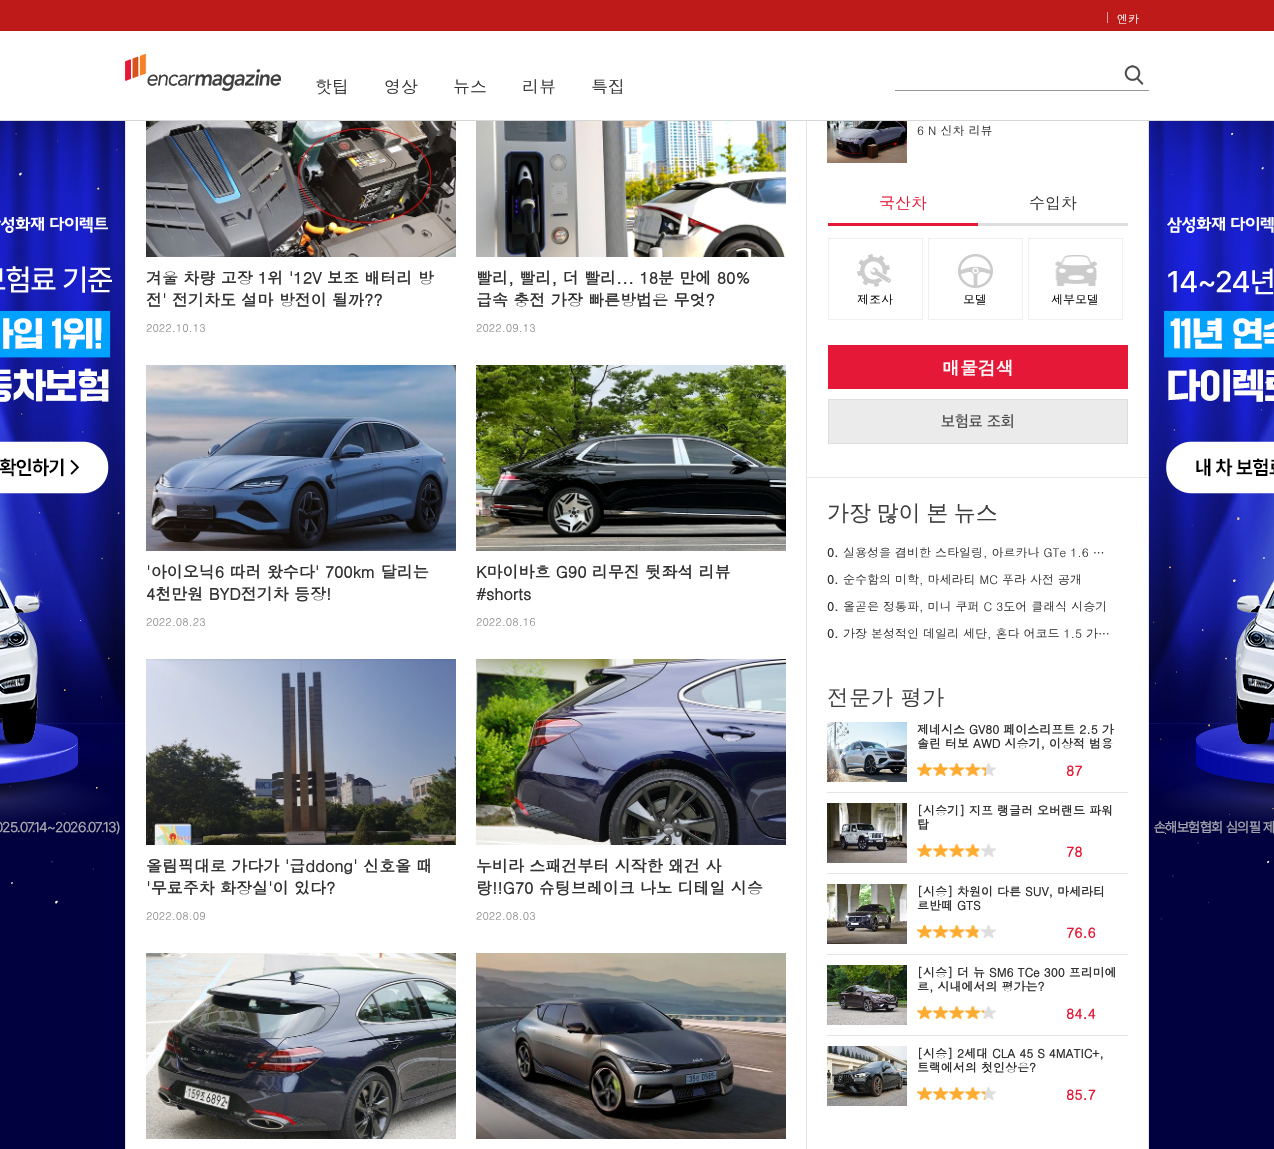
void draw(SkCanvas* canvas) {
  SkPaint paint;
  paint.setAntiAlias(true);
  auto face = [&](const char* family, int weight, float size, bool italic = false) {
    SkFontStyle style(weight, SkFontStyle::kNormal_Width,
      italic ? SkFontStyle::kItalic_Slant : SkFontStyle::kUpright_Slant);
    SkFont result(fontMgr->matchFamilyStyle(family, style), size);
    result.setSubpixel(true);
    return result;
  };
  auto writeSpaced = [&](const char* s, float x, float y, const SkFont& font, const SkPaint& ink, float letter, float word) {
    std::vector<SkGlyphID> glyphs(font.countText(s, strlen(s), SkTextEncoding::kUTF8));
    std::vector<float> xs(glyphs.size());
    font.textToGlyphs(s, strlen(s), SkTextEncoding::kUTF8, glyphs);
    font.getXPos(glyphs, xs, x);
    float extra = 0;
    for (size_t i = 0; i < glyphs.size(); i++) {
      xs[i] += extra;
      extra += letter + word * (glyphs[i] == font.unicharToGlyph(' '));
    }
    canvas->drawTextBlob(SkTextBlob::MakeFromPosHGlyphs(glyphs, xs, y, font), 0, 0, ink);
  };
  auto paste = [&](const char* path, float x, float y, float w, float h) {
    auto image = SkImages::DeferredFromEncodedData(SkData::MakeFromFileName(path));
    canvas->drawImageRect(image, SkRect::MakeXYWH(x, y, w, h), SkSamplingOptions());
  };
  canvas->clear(0xffffffff);
  {
    const struct { float x, y, w, h; SkColor color; } items[] = {
      {0, 120, 1274, 1, 0xffd8d8d8},
      {0, 0, 1274, 31, 0xffbe1a1a},
      {1107, 12, 1, 11, 0xfff5a098},
    };
    for (auto [x, y, w, h, color] : items) {
      paint.setColor(color);
      canvas->drawRect(SkRect::MakeXYWH(x, y, w, h), paint);
    }
  }
  paste("img/1.png", 125, 54, 156, 37);
  paint.setColor(0xff979797);
  canvas->drawRect(SkRect::MakeXYWH(895, 90, 254, 1), paint);
  paste("img/2.png", 1124, 65, 20, 20);
  paste("img/3.png", 0, 121, 125, 1028);
  paste("img/4.png", 1149, 121, 125, 1028);
  paint.setColor(0xffe6e6e6);
  canvas->drawRect(SkRect::MakeXYWH(1148, 121, 1, 1028), paint);
  canvas->drawRect(SkRect::MakeXYWH(125, 121, 1, 1028), paint);
  paste("img/5.png", 146, 121, 310, 136);
  paste("img/6.png", 476, 121, 310, 136);
  paste("img/7.png", 146, 365, 310, 186);
  paste("img/8.png", 476, 365, 310, 186);
  paste("img/9.png", 146, 659, 310, 186);
  paste("img/10.png", 476, 659, 310, 186);
  paste("img/11.png", 146, 953, 310, 186);
  paste("img/12.png", 476, 953, 310, 186);
  paint.setColor(0xffe5e5e5);
  canvas->drawRect(SkRect::MakeXYWH(806, 121, 1, 1028), paint);
  paste("img/13.png", 827, 121, 80, 42);
  paint.setColor(0xffe51937);
  canvas->drawRect(SkRect::MakeXYWH(828, 223, 150, 3), paint);
  paint.setColor(0xffdddddd);
  canvas->drawRect(SkRect::MakeXYWH(978, 223, 150, 3), paint);
  paste("img/14.png", 857, 254, 34, 33);
  paint.setStroke(true);
  paint.setStrokeWidth(1);
  paint.setColor(0xffefefef);
  canvas->drawRect(SkRect::MakeXYWH(828.5f, 238.5f, 94, 81), paint);
  paste("img/15.png", 958, 254, 35, 34);
  canvas->drawRect(SkRect::MakeXYWH(928.5f, 238.5f, 94, 81), paint);
  paste("img/16.png", 1055, 255, 42, 31);
  canvas->drawRect(SkRect::MakeXYWH(1028.5f, 238.5f, 94, 81), paint);
  paint.setStroke(false);
  paint.setColor(0xffe51937);
  canvas->drawRect(SkRect::MakeXYWH(828, 345, 300, 44), paint);
  paste("img/17.png", 828, 399, 300, 45);
  paint.setColor(0xffe6e6e6);
  canvas->drawRect(SkRect::MakeXYWH(807, 477, 341, 1), paint);
  paste("img/18.png", 827, 722, 80, 60);
  paste("img/19.png", 919, 763, 77, 13);
  paste("img/20.png", 917, 763, 69, 13);
  paint.setColor(0xffe4e4e4);
  canvas->drawRect(SkRect::MakeXYWH(827, 792, 301, 1), paint);
  paste("img/21.png", 827, 803, 80, 60);
  paste("img/19.png", 919, 844, 77, 13);
  paste("img/22.png", 917, 844, 62, 13);
  canvas->drawRect(SkRect::MakeXYWH(827, 873, 301, 1), paint);
  paste("img/23.png", 827, 884, 80, 60);
  paste("img/19.png", 919, 925, 77, 13);
  paste("img/24.png", 917, 925, 61, 13);
  canvas->drawRect(SkRect::MakeXYWH(827, 954, 301, 1), paint);
  paste("img/25.png", 827, 965, 80, 60);
  paste("img/19.png", 919, 1006, 77, 13);
  paste("img/26.png", 917, 1006, 67, 13);
  canvas->drawRect(SkRect::MakeXYWH(827, 1035, 301, 1), paint);
  paste("img/27.png", 827, 1046, 80, 60);
  paste("img/19.png", 919, 1087, 77, 13);
  paste("img/28.png", 917, 1087, 68, 13);
  auto f0 = face("Dotum", 400, 11);
  paint.setColor(0xffffffff);
  canvas->drawString("엔카", 1117, 23, f0, paint);
  auto f1 = face("Dotum", 400, 17);
  paint.setColor(0xff333333);
  {
    const struct { const char* s; float x, y; } items[] = {
      {"핫팁", 315, 93},
      {"영상", 384, 93},
      {"뉴스", 453, 93},
      {"리뷰", 522, 93},
      {"특집", 591, 93},
    };
    for (auto [s, x, y] : items) {
      canvas->drawString(s, x, y, f1, paint);
    }
  }
  auto f2 = face("Dotum", 700, 16);
  canvas->drawString("겨울 차량 고장 1위 '12V 보조 배터리 방", 146, 284, f2, paint);
  canvas->drawString("전' 전기차도 설마 방전이 될까?\077", 146, 306, f2, paint);
  paint.setColor(0xff919191);
  canvas->drawString("2022.10.13", 146, 332, f0, paint);
  paint.setColor(0xff333333);
  canvas->drawString("빨리, 빨리, 더 빨리... 18분 만에 80%", 476, 284, f2, paint);
  canvas->drawString("급속 충전 가장 빠른방법은 무엇?", 476, 306, f2, paint);
  paint.setColor(0xff919191);
  canvas->drawString("2022.09.13", 476, 332, f0, paint);
  paint.setColor(0xff333333);
  canvas->drawString("'아이오닉6 따러 왔수다' 700km 달리는", 146, 578, f2, paint);
  canvas->drawString("4천만원 BYD전기차 등장!", 146, 600, f2, paint);
  paint.setColor(0xff919191);
  canvas->drawString("2022.08.23", 146, 626, f0, paint);
  paint.setColor(0xff333333);
  canvas->drawString("K마이바흐 G90 리무진 뒷좌석 리뷰", 476, 578, f2, paint);
  canvas->drawString("#shorts", 476, 600, f2, paint);
  paint.setColor(0xff919191);
  canvas->drawString("2022.08.16", 476, 626, f0, paint);
  paint.setColor(0xff333333);
  canvas->drawString("올림픽대로 가다가 '급ddong' 신호올 때", 146, 872, f2, paint);
  canvas->drawString("'무료주차 화장실'이 있다?", 146, 894, f2, paint);
  paint.setColor(0xff919191);
  canvas->drawString("2022.08.09", 146, 920, f0, paint);
  paint.setColor(0xff333333);
  canvas->drawString("누비라 스패건부터 시작한 왜건 사", 476, 872, f2, paint);
  canvas->drawString("랑!!G70 슈팅브레이크 나노 디테일 시승", 476, 894, f2, paint);
  paint.setColor(0xff919191);
  canvas->drawString("2022.08.03", 476, 920, f0, paint);
  auto f3 = face("Dotum", 400, 12);
  paint.setColor(0xff333333);
  canvas->drawString("6 N 신차 리뷰", 917, 135, f3, paint);
  auto f4 = face("Dotum", 400, 16);
  paint.setColor(0xffe51937);
  canvas->drawString("국산차", 879, 209, f4, paint);
  paint.setColor(0xff333333);
  canvas->drawString("수입차", 1029, 209, f4, paint);
  paint.setColor(0xff000000);
  {
    const struct { const char* s; float x, y; } items[] = {
      {"제조사", 857, 304},
      {"모델", 963, 304},
      {"세부모델", 1051, 304},
    };
    for (auto [s, x, y] : items) {
      canvas->drawString(s, x, y, f3, paint);
    }
  }
  auto f5 = face("Dotum", 700, 18);
  paint.setColor(0xffffffff);
  canvas->drawString("매물검색", 942, 375, f5, paint);
  auto f6 = face("WenQuanYi Zen Hei", 500, 22);
  paint.setColor(0xff3f3f3f);
  writeSpaced("가장 많이 본 뉴스", 827, 520, f6, paint, 0, -1);
  auto f7 = face("Dotum", 700, 12);
  paint.setColor(0xff333333);
  canvas->drawString("0.", 827, 557, f7, paint);
  canvas->drawString("실용성을 겸비한 스타일링, 아르카나 GTe 1.6 …", 843, 557, f3, paint);
  canvas->drawString("0.", 827, 584, f7, paint);
  canvas->drawString("순수함의 미학, 마세라티 MC 푸라 사전 공개", 843, 584, f3, paint);
  canvas->drawString("0.", 827, 611, f7, paint);
  canvas->drawString("올곧은 정통파, 미니 쿠퍼 C 3도어 클래식 시승기", 843, 611, f3, paint);
  canvas->drawString("0.", 827, 638, f7, paint);
  canvas->drawString("가장 본성적인 데일리 세단, 혼다 어코드 1.5 가…", 843, 638, f3, paint);
  auto f8 = face("Dotum", 400, 22);
  paint.setColor(0xff3f3f3f);
  canvas->drawString("전문가 평가", 827, 706, f8, paint);
  paint.setColor(0xff333333);
  canvas->drawString("제네시스 GV80 페이스리프트 2.5 가", 917, 734, f7, paint);
  canvas->drawString("솔린 터보 AWD 시승기, 이상적 범용", 917, 748, f7, paint);
  auto f9 = face("Dotum", 700, 14);
  paint.setColor(0xffe51937);
  canvas->drawString("87", 1066, 776, f9, paint);
  paint.setColor(0xff333333);
  canvas->drawString("[시승기] 지프 랭글러 오버랜드 파워", 917, 815, f7, paint);
  canvas->drawString("탑", 917, 829, f7, paint);
  paint.setColor(0xffe51937);
  canvas->drawString("78", 1066, 857, f9, paint);
  paint.setColor(0xff333333);
  canvas->drawString("[시승] 차원이 다른 SUV, 마세라티", 917, 896, f7, paint);
  canvas->drawString("르반떼 GTS", 917, 910, f7, paint);
  paint.setColor(0xffe51937);
  canvas->drawString("76.6", 1066, 938, f9, paint);
  paint.setColor(0xff333333);
  canvas->drawString("[시승] 더 뉴 SM6 TCe 300 프리미에", 917, 977, f7, paint);
  canvas->drawString("르, 시내에서의 평가는?", 917, 991, f7, paint);
  paint.setColor(0xffe51937);
  canvas->drawString("84.4", 1066, 1019, f9, paint);
  paint.setColor(0xff333333);
  canvas->drawString("[시승] 2세대 CLA 45 S 4MATIC+,", 917, 1058, f7, paint);
  canvas->drawString("트랙에서의 첫인상은?", 917, 1072, f7, paint);
  paint.setColor(0xffe51937);
  canvas->drawString("85.7", 1066, 1100, f9, paint);
}
